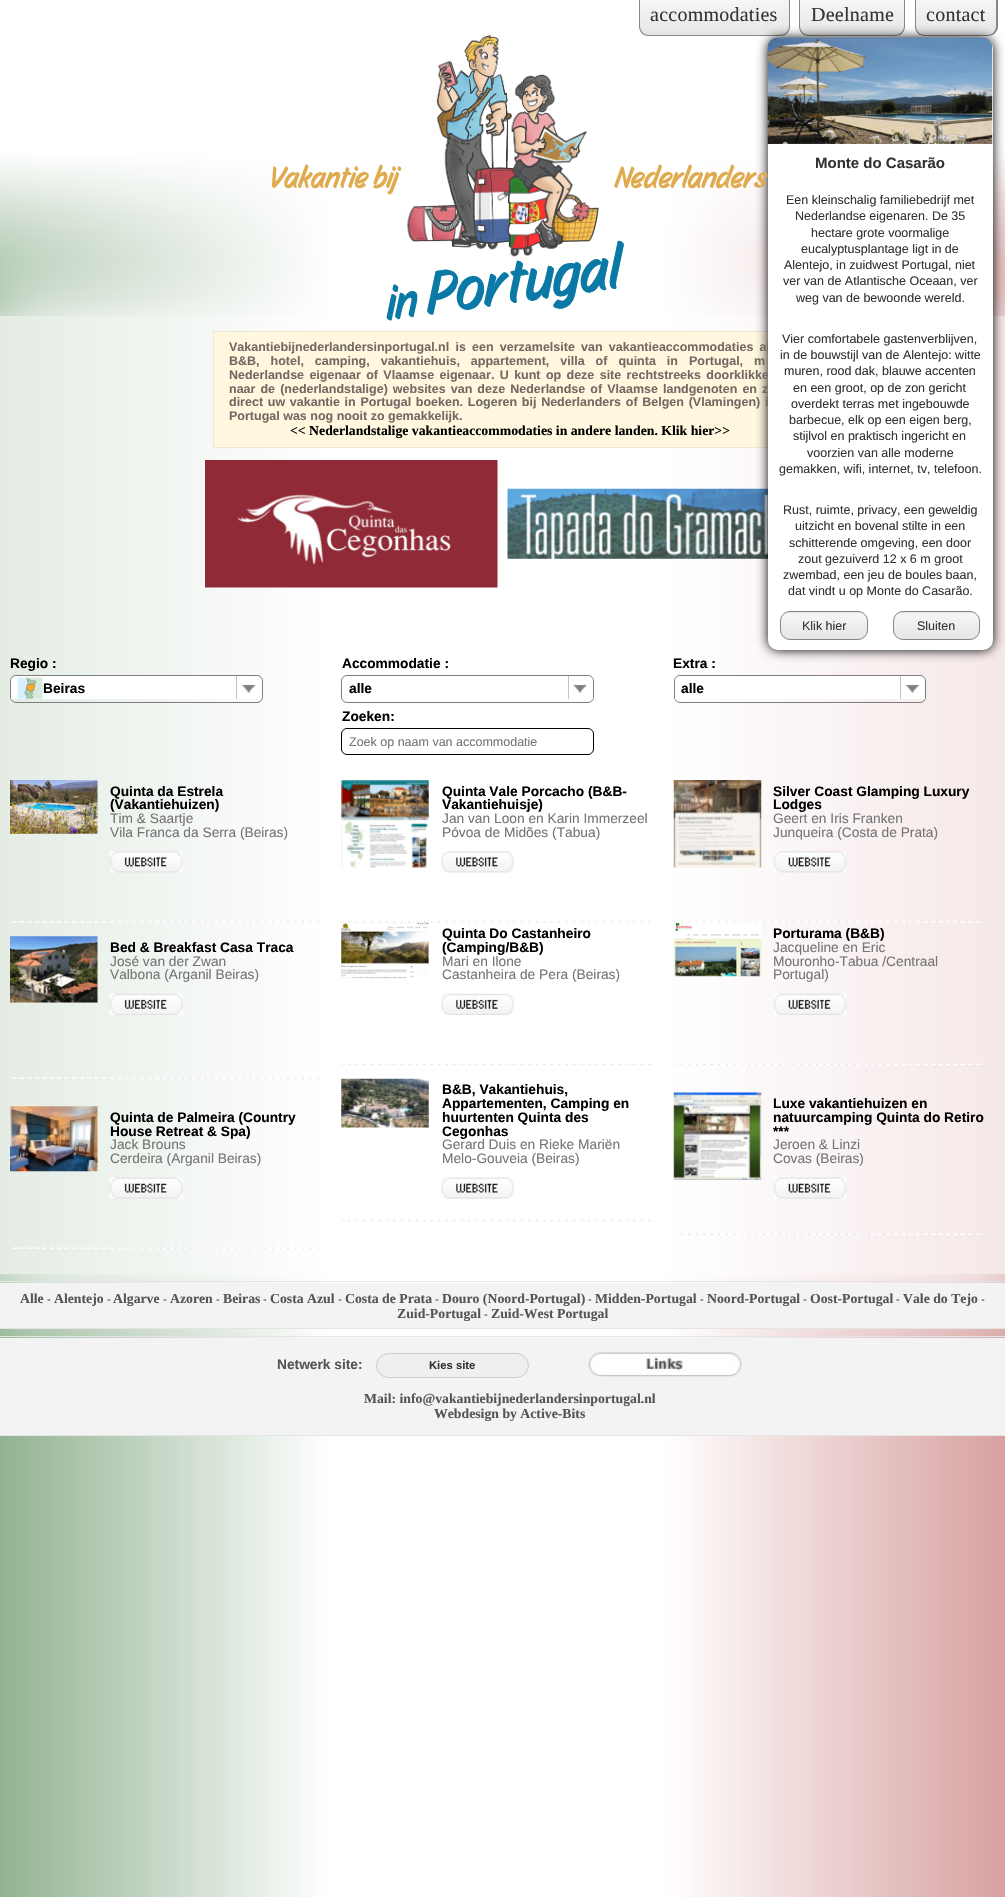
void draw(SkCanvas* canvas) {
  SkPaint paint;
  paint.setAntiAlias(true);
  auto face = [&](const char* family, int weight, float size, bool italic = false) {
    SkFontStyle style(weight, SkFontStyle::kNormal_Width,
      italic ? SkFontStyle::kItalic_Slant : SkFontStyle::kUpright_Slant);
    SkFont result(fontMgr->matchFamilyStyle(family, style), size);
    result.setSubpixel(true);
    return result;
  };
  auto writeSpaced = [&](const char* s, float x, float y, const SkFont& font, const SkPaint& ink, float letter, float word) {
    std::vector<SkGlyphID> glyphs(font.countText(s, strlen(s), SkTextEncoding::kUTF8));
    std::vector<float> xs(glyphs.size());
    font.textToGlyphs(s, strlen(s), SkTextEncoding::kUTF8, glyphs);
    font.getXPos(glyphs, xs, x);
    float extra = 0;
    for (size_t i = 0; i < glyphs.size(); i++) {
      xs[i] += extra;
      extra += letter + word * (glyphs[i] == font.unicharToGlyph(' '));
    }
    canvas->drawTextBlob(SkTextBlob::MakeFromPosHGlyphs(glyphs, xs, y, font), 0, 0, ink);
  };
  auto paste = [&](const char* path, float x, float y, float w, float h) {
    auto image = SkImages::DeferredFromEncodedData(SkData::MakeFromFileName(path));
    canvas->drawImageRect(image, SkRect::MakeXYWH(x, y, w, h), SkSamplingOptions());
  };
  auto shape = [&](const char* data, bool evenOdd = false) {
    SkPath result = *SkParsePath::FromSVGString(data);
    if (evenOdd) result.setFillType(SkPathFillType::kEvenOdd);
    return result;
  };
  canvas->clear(0xffffffff);
  {
    const SkColor colors[] = {0xff92b392, 0xffffffff, 0xffffffff, 0xffd8a1a1};
    const float stops[] = {0, 0.33f, 0.66f, 1};
    const SkPoint ends[] = {{0, 949}, {1005, 949}};
    paint.setShader(SkGradientShader::MakeLinear(ends, colors, stops, 4, SkTileMode::kClamp));
    paint.setAlpha(255);
  }
  canvas->drawRect(SkRect::MakeXYWH(0, 151, 1005, 1746), paint);
  {
    const SkColor colors[] = {0xffffffff, 0x00ffffff};
    const float stops[] = {0.5f, 1};
    const SkPoint ends[] = {{503, 0}, {503, 300}};
    paint.setShader(SkGradientShader::MakeLinear(ends, colors, stops, 2, SkTileMode::kClamp));
    paint.setAlpha(255);
  }
  canvas->drawRect(SkRect::MakeXYWH(0, 151, 1005, 145), paint);
  canvas->save();
  canvas->clipPath(shape("M639 0H790V26C790 31.5 785.5 36 780 36H649C643.5 36 639 31.5 639 26Z"), true);
  {
    const SkColor colors[] = {0xfff6f6f6, 0xffe6e6e6};
    const float stops[] = {0, 1};
    const SkPoint ends[] = {{714, 0}, {714, 35}};
    paint.setShader(SkGradientShader::MakeLinear(ends, colors, stops, 2, SkTileMode::kClamp));
    paint.setAlpha(255);
  }
  canvas->drawRect(SkRect::MakeXYWH(639, 0, 151, 35), paint);
  canvas->restore();
  paint.setShader(nullptr);
  paint.setColor(0xff868686);
  canvas->drawPath(shape("M639 0H790V26C790 32 786 36 780 36H649C643 36 639 32 639 26ZM640 0H789V26C789 31 785 35 780 35H649C644 35 640 31 640 26Z", true), paint);
  canvas->save();
  canvas->clipPath(shape("M799 0H905V26C905 31.5 900.5 36 895 36H809C803.5 36 799 31.5 799 26Z"), true);
  {
    const SkColor colors[] = {0xfff6f6f6, 0xffe6e6e6};
    const float stops[] = {0, 1};
    const SkPoint ends[] = {{852, 0}, {852, 35}};
    paint.setShader(SkGradientShader::MakeLinear(ends, colors, stops, 2, SkTileMode::kClamp));
    paint.setAlpha(255);
  }
  canvas->drawRect(SkRect::MakeXYWH(799, 0, 106, 35), paint);
  canvas->restore();
  paint.setShader(nullptr);
  paint.setColor(0xff868686);
  canvas->drawPath(shape("M799 0H905V26C905 32 901 36 895 36H809C803 36 799 32 799 26ZM800 0H904V26C904 31 900 35 895 35H809C804 35 800 31 800 26Z", true), paint);
  canvas->save();
  canvas->clipPath(shape("M915 0H998V26C998 31.5 993.5 36 988 36H925C919.5 36 915 31.5 915 26Z"), true);
  {
    const SkColor colors[] = {0xfff6f6f6, 0xffe6e6e6};
    const float stops[] = {0, 1};
    const SkPoint ends[] = {{956, 0}, {956, 35}};
    paint.setShader(SkGradientShader::MakeLinear(ends, colors, stops, 2, SkTileMode::kClamp));
    paint.setAlpha(255);
  }
  canvas->drawRect(SkRect::MakeXYWH(915, 0, 83, 35), paint);
  canvas->restore();
  paint.setShader(nullptr);
  paint.setColor(0xff868686);
  canvas->drawPath(shape("M915 0H998V26C998 32 993 36 988 36H925C919 36 915 32 915 26ZM916 0H996V26C996 31 992 35 988 35H925C920 35 916 31 916 26Z", true), paint);
  canvas->save();
  canvas->clipPath(shape("M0 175H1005V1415H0ZM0 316H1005V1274H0Z", true), true);
  paint.setColor(0xffffffff);
  paint.setMaskFilter(SkMaskFilter::MakeBlur(kNormal_SkBlurStyle, 40));
  canvas->drawRect(SkRect::MakeXYWH(-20, 296, 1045, 998), paint);
  paint.setMaskFilter(nullptr);
  canvas->restore();
  paste("img/1.png", 407, 35, 192, 222);
  paint.setColor(0xbfffffff);
  canvas->drawRect(SkRect::MakeXYWH(0, 316, 1005, 958), paint);
  paint.setColor(0xfffff7de);
  canvas->drawRect(SkRect::MakeXYWH(214, 332, 554, 115), paint);
  paint.setStroke(true);
  paint.setStrokeWidth(1);
  paint.setColor(0xffefe7d6);
  canvas->drawRect(SkRect::MakeXYWH(213.5f, 331.5f, 579, 116), paint);
  paste("img/2.png", 205, 460, 293, 128);
  paste("img/3.png", 507, 488, 261, 71);
  paint.setColor(0xff7e7e7e);
  canvas->drawRoundRect(SkRect::MakeXYWH(10.5f, 675.5f, 252, 27), 5.5f, 5.5f, paint);
  paint.setStroke(false);
  paint.setColor(0xffffffff);
  canvas->drawPath(shape("M17 676H255C258.5 676 261 678.5 261 682V699H11V682C11 678.5 13.5 676 17 676Z"), paint);
  paste("img/4.png", 17, 677, 26, 22);
  paint.setColor(0xffc3c3c3);
  canvas->drawRect(SkRect::MakeXYWH(236, 676, 1, 23), paint);
  paste("img/5.png", 242, 684, 14, 9);
  paint.setStroke(true);
  paint.setColor(0xff7e7e7e);
  canvas->drawRoundRect(SkRect::MakeXYWH(341.5f, 675.5f, 252, 27), 5.5f, 5.5f, paint);
  paint.setStroke(false);
  paint.setColor(0xffffffff);
  canvas->drawPath(shape("M349 676H587C590.5 676 593 678.5 593 682V699H343V682C343 678.5 345.5 676 349 676Z"), paint);
  paint.setColor(0xffc3c3c3);
  canvas->drawRect(SkRect::MakeXYWH(568, 676, 1, 23), paint);
  paste("img/6.png", 573, 684, 14, 9);
  paint.setStroke(true);
  paint.setColor(0xff7e7e7e);
  canvas->drawRoundRect(SkRect::MakeXYWH(674.5f, 675.5f, 251, 27), 5.5f, 5.5f, paint);
  paint.setStroke(false);
  paint.setColor(0xffffffff);
  canvas->drawPath(shape("M681 676H919C922.5 676 925 678.5 925 682V699H675V682C675 678.5 677.5 676 681 676Z"), paint);
  paint.setColor(0xffc3c3c3);
  canvas->drawRect(SkRect::MakeXYWH(900, 676, 1, 23), paint);
  paste("img/7.png", 906, 684, 13, 9);
  paint.setStroke(true);
  paint.setColor(0xff000000);
  canvas->drawRoundRect(SkRect::MakeXYWH(341.5f, 728.5f, 252, 26), 5.5f, 5.5f, paint);
  paste("img/8.png", 10, 921, 309, 2);
  paste("img/9.png", 10, 780, 88, 54);
  paste("img/10.png", 110, 851, 73, 22);
  paste("img/11.png", 341, 921, 309, 2);
  paste("img/12.png", 341, 780, 88, 88);
  paste("img/13.png", 441, 851, 73, 22);
  paste("img/14.png", 674, 921, 311, 2);
  paste("img/15.png", 673, 780, 89, 88);
  paste("img/16.png", 773, 851, 74, 22);
  paste("img/17.png", 10, 1077, 309, 2);
  paste("img/18.png", 10, 936, 88, 67);
  paste("img/19.png", 110, 993, 73, 22);
  paste("img/20.png", 341, 1063, 310, 2);
  paste("img/21.png", 341, 922, 88, 57);
  paste("img/22.png", 441, 993, 73, 22);
  paste("img/23.png", 674, 1063, 311, 2);
  paste("img/24.png", 673, 922, 89, 55);
  paste("img/25.png", 773, 993, 74, 22);
  paste("img/17.png", 10, 1247, 309, 2);
  paste("img/26.png", 10, 1106, 88, 66);
  paste("img/27.png", 110, 1177, 73, 22);
  paste("img/28.png", 341, 1220, 310, 2);
  paste("img/29.png", 341, 1078, 88, 50);
  paste("img/30.png", 441, 1177, 73, 22);
  paste("img/23.png", 674, 1233, 311, 2);
  paste("img/31.png", 673, 1092, 89, 88);
  paste("img/32.png", 773, 1177, 74, 22);
  paint.setStroke(false);
  {
    const struct { float x, y, w, h; SkColor color; } items[] = {
      {0, 1283, 1005, 45, 0xfff3f3f3},
      {0, 1281, 1005, 1, 0xffe4e4e4},
      {0, 1328, 1005, 1, 0xffe4e4e4},
      {0, 1338, 1005, 97, 0xfff3f3f3},
      {0, 1336, 1005, 1, 0xffe4e4e4},
      {0, 1435, 1005, 1, 0xffe4e4e4},
    };
    for (auto [x, y, w, h, color] : items) {
      paint.setColor(color);
      canvas->drawRect(SkRect::MakeXYWH(x, y, w, h), paint);
    }
  }
  paint.setColor(0xffefefef);
  canvas->drawRoundRect(SkRect::MakeXYWH(376.5f, 1353.5f, 152, 24), 12, 12, paint);
  paint.setStroke(true);
  paint.setColor(0xffcccccc);
  canvas->drawRoundRect(SkRect::MakeXYWH(376.5f, 1353.5f, 152, 24), 12, 12, paint);
  paste("img/33.png", 588, 1352, 154, 25);
  paint.setStroke(false);
  paint.setColor(0xff000000);
  paint.setMaskFilter(SkMaskFilter::MakeBlur(kNormal_SkBlurStyle, 6));
  canvas->drawRoundRect(SkRect::MakeXYWH(768, 38, 225, 612), 10, 10, paint);
  paint.setMaskFilter(nullptr);
  auto f0 = face("Liberation Serif", 400, 20);
  paint.setColor(0xff333333);
  {
    const struct { const char* s; float x, y; } items[] = {
      {"accommodaties", 650, 21},
      {"Deelname", 811, 21},
      {"contact", 926, 21},
    };
    for (auto [s, x, y] : items) {
      writeSpaced(s, x, y, f0, paint, 0.25f, 0);
    }
  }
  auto f1 = face("Story Script", 700, 30);
  paint.setColor(0xffe0ab4e);
  canvas->drawString("Vakantie bij", 268, 187, f1, paint);
  canvas->drawString("Nederlanders", 615, 187, f1, paint);
  auto f2 = face("Story Script", 700, 48);
  paint.setColor(0xff0b79a5);
  canvas->save();
  canvas->rotate(-8, 388, 319);
  canvas->drawString("in", 388, 319, f2, paint);
  canvas->restore();
  auto f3 = face("Story Script", 700, 60);
  canvas->save();
  canvas->rotate(-8, 429, 313);
  canvas->drawString("Portugal", 429, 313, f3, paint);
  canvas->restore();
  auto f4 = face("Liberation Sans", 700, 12.5f);
  paint.setColor(0xff736963);
  writeSpaced("Vakantiebijnederlandersinportugal.nl is een verzamelsite van vakantieaccommodaties al", 229, 351, f4, paint, 0, 2.75f);
  writeSpaced("B&B, hotel, camping, vakantiehuis, appartement, villa of quinta in Portugal, m", 229, 365, f4, paint, 0, 7.5f);
  writeSpaced("Nederlandse eigenaar of Vlaamse eigenaar. U kunt op deze site rechtstreeks doorklikke", 229, 379, f4, paint, 0, 1.9f);
  writeSpaced("naar de (nederlandstalige) websites van deze Nederlandse of Vlaamse landgenoten en z", 229, 393, f4, paint, 0, 1.6f);
  writeSpaced("direct uw vakantie in Portugal boeken. Logeren bij Nederlanders of Belgen (Vlamingen) i", 229, 406, f4, paint, 0, 1.25f);
  canvas->drawString("Portugal was nog nooit zo gemakkelijk.", 229, 420, f4, paint);
  auto f5 = face("Liberation Serif", 700, 13.75f);
  paint.setColor(0xff000000);
  canvas->drawString("<< Nederlandstalige vakantieaccommodaties in andere landen. Klik hier>>", 290, 435, f5, paint);
  auto f6 = face("Liberation Sans", 700, 13.75f);
  {
    const struct { const char* s; float x, y; } items[] = {
      {"Regio :", 10, 668},
      {"Beiras", 43, 693},
      {"Accommodatie :", 342, 668},
      {"alle", 349, 693},
      {"Extra :", 673, 668},
      {"alle", 681, 693},
      {"Zoeken:", 342, 721},
    };
    for (auto [s, x, y] : items) {
      canvas->drawString(s, x, y, f6, paint);
    }
  }
  auto f7 = face("Liberation Sans", 400, 12.5f);
  paint.setColor(0xff757575);
  canvas->drawString("Zoek op naam van accommodatie", 349, 746, f7, paint);
  paint.setColor(0xff000000);
  canvas->drawString("Quinta da Estrela", 110, 796, f6, paint);
  canvas->drawString("(Vakantiehuizen)", 110, 809, f6, paint);
  auto f8 = face("Liberation Sans", 400, 13.75f);
  paint.setColor(0xff757575);
  canvas->drawString("Tim & Saartje", 110, 823, f8, paint);
  canvas->drawString("Vila Franca da Serra (Beiras)", 110, 837, f8, paint);
  paint.setColor(0xff000000);
  canvas->drawString("Quinta Vale Porcacho (B&B-", 442, 796, f6, paint);
  canvas->drawString("Vakantiehuisje)", 442, 809, f6, paint);
  paint.setColor(0xff757575);
  canvas->drawString("Jan van Loon en Karin Immerzeel", 442, 823, f8, paint);
  canvas->drawString("Póvoa de Midões (Tabua)", 442, 837, f8, paint);
  paint.setColor(0xff000000);
  canvas->drawString("Silver Coast Glamping Luxury", 773, 796, f6, paint);
  canvas->drawString("Lodges", 773, 809, f6, paint);
  paint.setColor(0xff757575);
  canvas->drawString("Geert en Iris Franken", 773, 823, f8, paint);
  canvas->drawString("Junqueira (Costa de Prata)", 773, 837, f8, paint);
  paint.setColor(0xff000000);
  canvas->drawString("Bed & Breakfast Casa Traca", 110, 952, f6, paint);
  paint.setColor(0xff757575);
  canvas->drawString("José van der Zwan", 110, 966, f8, paint);
  canvas->drawString("Valbona (Arganil Beiras)", 110, 979, f8, paint);
  paint.setColor(0xff000000);
  canvas->drawString("Quinta Do Castanheiro", 442, 938, f6, paint);
  canvas->drawString("(Camping/B&B)", 442, 952, f6, paint);
  paint.setColor(0xff757575);
  canvas->drawString("Mari en Ilone", 442, 966, f8, paint);
  canvas->drawString("Castanheira de Pera (Beiras)", 442, 979, f8, paint);
  paint.setColor(0xff000000);
  canvas->drawString("Porturama (B&B)", 773, 938, f6, paint);
  paint.setColor(0xff757575);
  {
    const struct { const char* s; float x, y; } items[] = {
      {"Jacqueline en Eric", 773, 952},
      {"Mouronho-Tabua /Centraal", 773, 966},
      {"Portugal)", 773, 979},
    };
    for (auto [s, x, y] : items) {
      canvas->drawString(s, x, y, f8, paint);
    }
  }
  paint.setColor(0xff000000);
  canvas->drawString("Quinta de Palmeira (Country", 110, 1122, f6, paint);
  canvas->drawString("House Retreat & Spa)", 110, 1136, f6, paint);
  paint.setColor(0xff757575);
  canvas->drawString("Jack Brouns", 110, 1149, f8, paint);
  canvas->drawString("Cerdeira (Arganil Beiras)", 110, 1163, f8, paint);
  paint.setColor(0xff000000);
  {
    const struct { const char* s; float x, y; } items[] = {
      {"B&B, Vakantiehuis,", 442, 1094},
      {"Appartementen, Camping en", 442, 1108},
      {"huurtenten Quinta des", 442, 1122},
      {"Cegonhas", 442, 1136},
    };
    for (auto [s, x, y] : items) {
      canvas->drawString(s, x, y, f6, paint);
    }
  }
  paint.setColor(0xff757575);
  canvas->drawString("Gerard Duis en Rieke Mariën", 442, 1149, f8, paint);
  canvas->drawString("Melo-Gouveia (Beiras)", 442, 1163, f8, paint);
  paint.setColor(0xff000000);
  {
    const struct { const char* s; float x, y; } items[] = {
      {"Luxe vakantiehuizen en", 773, 1108},
      {"natuurcamping Quinta do Retiro", 773, 1122},
      {"***", 773, 1136},
    };
    for (auto [s, x, y] : items) {
      canvas->drawString(s, x, y, f6, paint);
    }
  }
  paint.setColor(0xff757575);
  canvas->drawString("Jeroen & Linzi", 773, 1149, f8, paint);
  canvas->drawString("Covas (Beiras)", 773, 1163, f8, paint);
  paint.setColor(0xff555555);
  canvas->drawString("Alle", 20, 1303, f5, paint);
  auto f9 = face("Liberation Sans", 400, 11.25f);
  paint.setColor(0xff26592a);
  canvas->drawString("-", 47, 1303, f9, paint);
  paint.setColor(0xff555555);
  canvas->drawString("Alentejo", 54, 1303, f5, paint);
  paint.setColor(0xff26592a);
  canvas->drawString("-", 107, 1303, f9, paint);
  paint.setColor(0xff555555);
  canvas->drawString("Algarve", 113, 1303, f5, paint);
  paint.setColor(0xff26592a);
  canvas->drawString("-", 163, 1303, f9, paint);
  paint.setColor(0xff555555);
  canvas->drawString("Azoren", 170, 1303, f5, paint);
  paint.setColor(0xff26592a);
  canvas->drawString("-", 216, 1303, f9, paint);
  paint.setColor(0xff555555);
  canvas->drawString("Beiras", 223, 1303, f5, paint);
  paint.setColor(0xff26592a);
  canvas->drawString("-", 263, 1303, f9, paint);
  paint.setColor(0xff555555);
  canvas->drawString("Costa Azul", 270, 1303, f5, paint);
  paint.setColor(0xff26592a);
  canvas->drawString("-", 338, 1303, f9, paint);
  paint.setColor(0xff555555);
  canvas->drawString("Costa de Prata", 345, 1303, f5, paint);
  paint.setColor(0xff26592a);
  canvas->drawString("-", 435, 1303, f9, paint);
  paint.setColor(0xff555555);
  canvas->drawString("Douro (Noord-Portugal)", 442, 1303, f5, paint);
  paint.setColor(0xff26592a);
  canvas->drawString("-", 588, 1303, f9, paint);
  paint.setColor(0xff555555);
  canvas->drawString("Midden-Portugal", 595, 1303, f5, paint);
  paint.setColor(0xff26592a);
  canvas->drawString("-", 700, 1303, f9, paint);
  paint.setColor(0xff555555);
  canvas->drawString("Noord-Portugal", 707, 1303, f5, paint);
  paint.setColor(0xff26592a);
  canvas->drawString("-", 803, 1303, f9, paint);
  paint.setColor(0xff555555);
  canvas->drawString("Oost-Portugal", 810, 1303, f5, paint);
  paint.setColor(0xff26592a);
  canvas->drawString("-", 896, 1303, f9, paint);
  paint.setColor(0xff555555);
  canvas->drawString("Vale do Tejo", 903, 1303, f5, paint);
  paint.setColor(0xff26592a);
  canvas->drawString("-", 981, 1303, f9, paint);
  paint.setColor(0xff555555);
  canvas->drawString("Zuid-Portugal", 397, 1318, f5, paint);
  paint.setColor(0xff26592a);
  canvas->drawString("-", 484, 1318, f9, paint);
  paint.setColor(0xff555555);
  canvas->drawString("Zuid-West Portugal", 491, 1318, f5, paint);
  canvas->drawString("Netwerk site:", 277, 1369, f6, paint);
  auto f10 = face("Liberation Sans", 700, 11.25f);
  paint.setColor(0xff333333);
  canvas->drawString("Kies site", 429, 1369, f10, paint);
  paint.setColor(0xff555555);
  canvas->drawString("Mail: info@vakantiebijnederlandersinportugal.nl", 364, 1403, f5, paint);
  canvas->drawString("Webdesign by Active-Bits", 434, 1418, f5, paint);
  paint.setColor(0xffffffff);
  canvas->drawRoundRect(SkRect::MakeXYWH(768, 38, 225, 612), 10, 10, paint);
  paste("img/34.png", 767, 37, 226, 107);
  auto f11 = face("Liberation Sans", 700, 15);
  paint.setColor(0xff333333);
  canvas->drawString("Monte do Casarão", 815, 168, f11, paint);
  {
    const struct { const char* s; float x, y; } items[] = {
      {"Een kleinschalig familiebedrijf met", 786, 204},
      {"Nederlandse eigenaren. De 35", 795, 220},
      {"hectare grote voormalige", 811, 237},
      {"eucalyptusplantage ligt in de", 801, 253},
      {"Alentejo, in zuidwest Portugal, niet", 784, 269},
      {"ver van de Atlantische Oceaan, ver", 783, 285},
      {"weg van de bewoonde wereld.", 796, 302},
      {"Vier comfortabele gastenverblijven,", 782, 343},
      {"in de bouwstijl van de Alentejo: witte", 780, 359},
      {"muren, rood dak, blauwe accenten", 784, 375},
      {"en een groot, op de zon gericht", 793, 392},
      {"overdekt terras met ingebouwde", 791, 408},
      {"barbecue, elk op een eigen berg,", 789, 424},
      {"stijlvol en praktisch ingericht en", 793, 440},
      {"voorzien van alle moderne", 807, 457},
      {"gemakken, wifi, internet, tv, telefoon.", 779, 473},
      {"Rust, ruimte, privacy, een geweldig", 783, 514},
      {"uitzicht en bovenal stilte in een", 795, 530},
      {"schitterende omgeving, een door", 789, 547},
      {"zout gezuiverd 12 x 6 m groot", 798, 563},
      {"zwembad, een jeu de boules baan,", 783, 579},
      {"dat vindt u op Monte do Casarão.", 788, 595},
    };
    for (auto [s, x, y] : items) {
      canvas->drawString(s, x, y, f7, paint);
    }
  }
  canvas->save();
  canvas->clipPath(shape("M790 611H858C863.5 611 868 615.5 868 621V630C868 635.5 863.5 640 858 640H790C784.5 640 780 635.5 780 630V621C780 615.5 784.5 611 790 611Z"), true);
  {
    const SkColor colors[] = {0xfff6f6f6, 0xffe6e6e6};
    const float stops[] = {0, 1};
    const SkPoint ends[] = {{824, 586}, {824, 613}};
    paint.setShader(SkGradientShader::MakeLinear(ends, colors, stops, 2, SkTileMode::kClamp));
    paint.setAlpha(255);
  }
  canvas->drawRect(SkRect::MakeXYWH(780, 611, 88, 2), paint);
  {
    const SkColor colors[] = {0xfff6f6f6, 0xffe6e6e6};
    const float stops[] = {0, 1};
    const SkPoint ends[] = {{824, 613}, {824, 639}};
    paint.setShader(SkGradientShader::MakeLinear(ends, colors, stops, 2, SkTileMode::kClamp));
    paint.setAlpha(255);
  }
  canvas->drawRect(SkRect::MakeXYWH(780, 613, 88, 26), paint);
  canvas->restore();
  paint.setStroke(true);
  paint.setShader(nullptr);
  paint.setColor(0xff868686);
  canvas->drawRoundRect(SkRect::MakeXYWH(780.5f, 611.5f, 87, 28), 9.5f, 9.5f, paint);
  paint.setStroke(false);
  paint.setColor(0xff333333);
  canvas->drawString("Klik hier", 802, 630, f7, paint);
  canvas->save();
  canvas->clipPath(shape("M903 611H970C975.5 611 980 615.5 980 621V630C980 635.5 975.5 640 970 640H903C897.5 640 893 635.5 893 630V621C893 615.5 897.5 611 903 611Z"), true);
  {
    const SkColor colors[] = {0xfff6f6f6, 0xffe6e6e6};
    const float stops[] = {0, 1};
    const SkPoint ends[] = {{936, 586}, {936, 613}};
    paint.setShader(SkGradientShader::MakeLinear(ends, colors, stops, 2, SkTileMode::kClamp));
    paint.setAlpha(255);
  }
  canvas->drawRect(SkRect::MakeXYWH(893, 611, 87, 2), paint);
  {
    const SkColor colors[] = {0xfff6f6f6, 0xffe6e6e6};
    const float stops[] = {0, 1};
    const SkPoint ends[] = {{936, 613}, {936, 639}};
    paint.setShader(SkGradientShader::MakeLinear(ends, colors, stops, 2, SkTileMode::kClamp));
    paint.setAlpha(255);
  }
  canvas->drawRect(SkRect::MakeXYWH(893, 613, 87, 26), paint);
  canvas->restore();
  paint.setStroke(true);
  paint.setShader(nullptr);
  paint.setColor(0xff868686);
  canvas->drawRoundRect(SkRect::MakeXYWH(893.5f, 611.5f, 86, 28), 9.5f, 9.5f, paint);
  paint.setStroke(false);
  paint.setColor(0xff333333);
  canvas->drawString("Sluiten", 917, 630, f7, paint);
}
